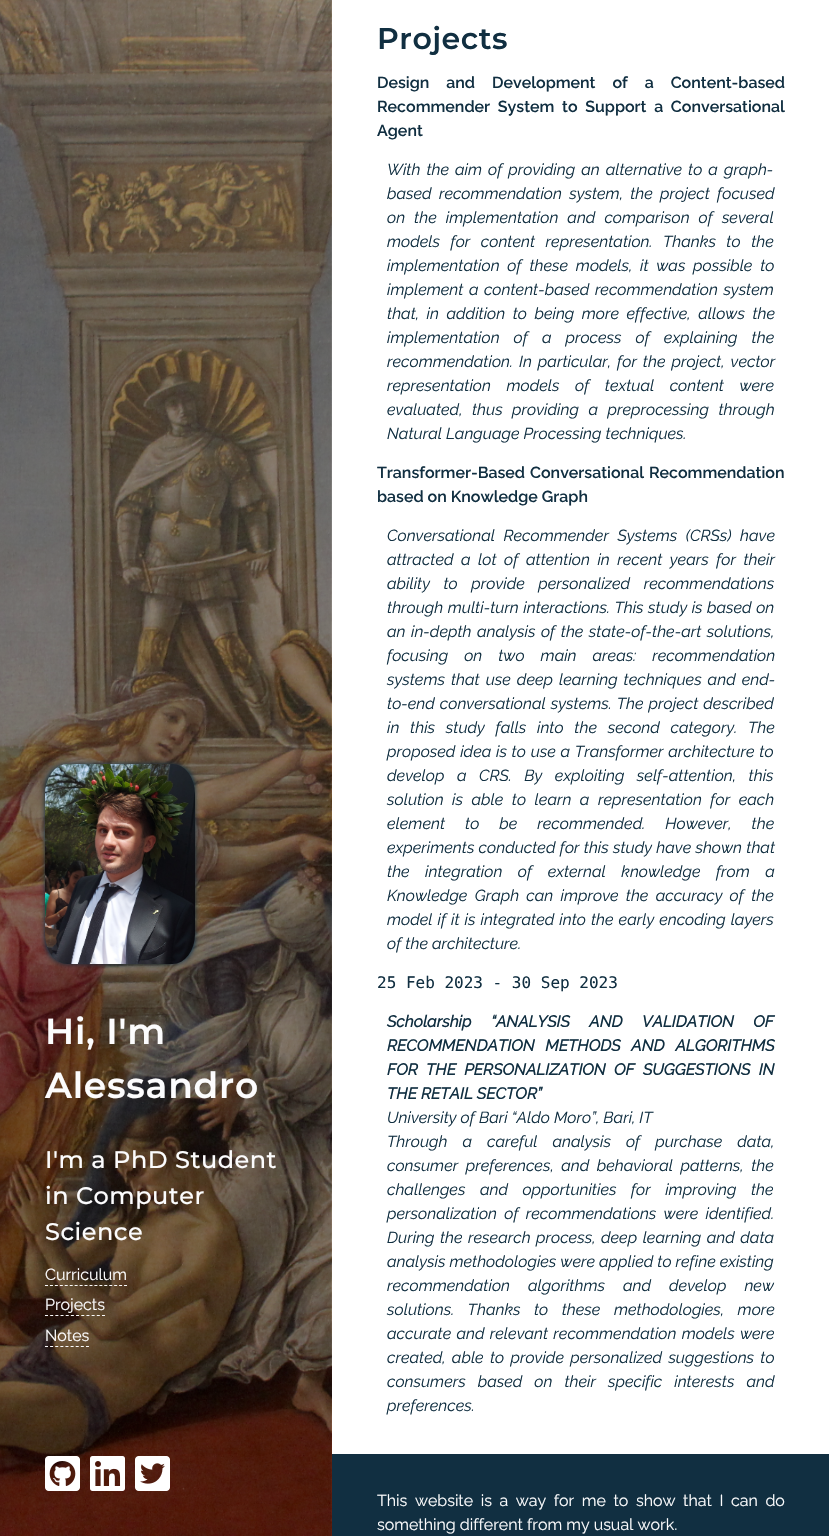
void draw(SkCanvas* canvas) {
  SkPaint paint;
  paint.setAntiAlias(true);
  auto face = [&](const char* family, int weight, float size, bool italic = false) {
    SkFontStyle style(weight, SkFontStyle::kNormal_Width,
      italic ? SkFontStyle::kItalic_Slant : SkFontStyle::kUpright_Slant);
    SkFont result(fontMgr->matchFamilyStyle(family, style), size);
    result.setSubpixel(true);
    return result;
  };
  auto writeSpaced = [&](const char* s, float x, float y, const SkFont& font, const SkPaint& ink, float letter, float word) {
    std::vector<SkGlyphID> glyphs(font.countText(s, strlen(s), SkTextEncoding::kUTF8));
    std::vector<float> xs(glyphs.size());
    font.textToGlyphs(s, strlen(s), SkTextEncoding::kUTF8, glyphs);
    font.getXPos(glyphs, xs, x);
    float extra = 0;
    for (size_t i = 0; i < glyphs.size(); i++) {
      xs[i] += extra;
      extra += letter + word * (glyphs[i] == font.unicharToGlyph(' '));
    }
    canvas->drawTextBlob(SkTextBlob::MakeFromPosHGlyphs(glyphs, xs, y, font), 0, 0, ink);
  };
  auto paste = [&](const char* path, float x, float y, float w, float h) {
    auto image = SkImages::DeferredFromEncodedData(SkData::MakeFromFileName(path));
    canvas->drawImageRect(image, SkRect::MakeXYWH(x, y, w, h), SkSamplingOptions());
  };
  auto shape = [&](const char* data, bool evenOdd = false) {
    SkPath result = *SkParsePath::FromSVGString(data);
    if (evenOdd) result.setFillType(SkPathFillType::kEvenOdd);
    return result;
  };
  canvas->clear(0xffffffff);
  paste("img/1.png", 0, 0, 332, 1536);
  paint.setColor(0xff112f41);
  paint.setMaskFilter(SkMaskFilter::MakeBlur(kNormal_SkBlurStyle, 2.5f));
  canvas->drawRoundRect(SkRect::MakeXYWH(45, 764, 150, 200), 23, 23, paint);
  paint.setMaskFilter(nullptr);
  paste("img/2.png", 45, 764, 150, 200);
  paint.setStroke(true);
  paint.setStrokeWidth(1);
  paint.setColor(0xfffcfcfd);
  paint.setPathEffect(SkDashPathEffect::Make({{3, 1.94f}}, 0));
  canvas->drawPath(shape("M45 1285.5H127"), paint);
  paint.setPathEffect(nullptr);
  paint.setPathEffect(SkDashPathEffect::Make({{3, 2.18f}}, 0));
  canvas->drawPath(shape("M45 1315.5H105"), paint);
  paint.setPathEffect(nullptr);
  paint.setPathEffect(SkDashPathEffect::Make({{3, 2.12f}}, 0));
  canvas->drawPath(shape("M45 1346.5H89"), paint);
  paint.setPathEffect(nullptr);
  paste("img/3.png", 45, 1456, 35, 35);
  paste("img/4.png", 90, 1456, 35, 35);
  paste("img/5.png", 135, 1456, 35, 35);
  paint.setStroke(false);
  paint.setColor(0xff112f41);
  canvas->drawRect(SkRect::MakeXYWH(332, 1454, 497, 82), paint);
  auto f0 = face("Montserrat", 600, 36);
  paint.setColor(0xfffcfcfd);
  writeSpaced("Hi, I'm", 45, 1044, f0, paint, 0.75f, 0);
  writeSpaced("Alessandro", 45, 1098, f0, paint, 0.75f, 0);
  auto f1 = face("Montserrat", 500, 24);
  {
    const struct { const char* s; float x, y; } items[] = {
      {"I'm a PhD Student", 45, 1168},
      {"in Computer", 45, 1204},
      {"Science", 45, 1240},
    };
    for (auto [s, x, y] : items) {
      writeSpaced(s, x, y, f1, paint, 0.5f, 0);
    }
  }
  auto f2 = face("Raleway", 400, 16);
  {
    const struct { const char* s; float x, y; } items[] = {
      {"Curriculum", 45, 1280},
      {"Projects", 45, 1310},
      {"Notes", 45, 1341},
    };
    for (auto [s, x, y] : items) {
      canvas->drawString(s, x, y, f2, paint);
    }
  }
  auto f3 = face("Montserrat", 600, 30);
  paint.setColor(0xff112f41);
  writeSpaced("Projects", 377, 49, f3, paint, 0.5f, 0);
  auto f4 = face("Raleway", 600, 16);
  writeSpaced("Design and Development of a Content-based", 377, 88, f4, paint, 0, 13);
  writeSpaced("Recommender System to Support a Conversational", 377, 112, f4, paint, 0, 3.75f);
  canvas->drawString("Agent", 377, 136, f4, paint);
  auto f5 = face("Raleway", 100, 16, true);
  writeSpaced("With the aim of providing an alternative to a graph-", 387, 175, f5, paint, 0, 2);
  writeSpaced("based recommendation system, the project focused", 387, 199, f5, paint, 0, 3.25f);
  writeSpaced("on the implementation and comparison of several", 387, 223, f5, paint, 0, 5);
  writeSpaced("models for content representation. Thanks to the", 387, 247, f5, paint, 0, 6.5f);
  writeSpaced("implementation of these models, it was possible to", 387, 271, f5, paint, 0, 3.75f);
  writeSpaced("implement a content-based recommendation system", 387, 295, f5, paint, 0, 1.5f);
  writeSpaced("that, in addition to being more effective, allows the", 387, 319, f5, paint, 0, 3.5f);
  writeSpaced("implementation of a process of explaining the", 387, 343, f5, paint, 0, 10);
  writeSpaced("recommendation. In particular, for the project, vector", 387, 367, f5, paint, 0, 2);
  writeSpaced("representation models of textual content were", 387, 391, f5, paint, 0, 11.5f);
  writeSpaced("evaluated, thus providing a preprocessing through", 387, 415, f5, paint, 0, 5.5f);
  canvas->drawString("Natural Language Processing techniques.", 387, 439, f5, paint);
  writeSpaced("Transformer-Based Conversational Recommendation", 377, 478, f4, paint, 0, 1);
  canvas->drawString("based on Knowledge Graph", 377, 502, f4, paint);
  writeSpaced("Conversational Recommender Systems (CRSs) have", 387, 541, f5, paint, 0, 4.5f);
  writeSpaced("attracted a lot of attention in recent years for their", 387, 565, f5, paint, 0, 3.5f);
  writeSpaced("ability to provide personalized recommendations", 387, 589, f5, paint, 0, 9.5f);
  writeSpaced("through multi-turn interactions. This study is based on", 387, 613, f5, paint, 0, 0.5f);
  writeSpaced("an in-depth analysis of the state-of-the-art solutions,", 387, 637, f5, paint, 0, 1.5f);
  writeSpaced("focusing on two main areas: recommendation", 387, 661, f5, paint, 0, 12);
  writeSpaced("systems that use deep learning techniques and end-", 387, 685, f5, paint, 0, 2);
  writeSpaced("to-end conversational systems. The project described", 387, 709, f5, paint, 0, 1);
  writeSpaced("in this study falls into the second category. The", 387, 733, f5, paint, 0, 6.75f);
  writeSpaced("proposed idea is to use a Transformer architecture to", 387, 757, f5, paint, 0, 0.75f);
  writeSpaced("develop a CRS. By exploiting self-attention, this", 387, 781, f5, paint, 0, 8.5f);
  writeSpaced("solution is able to learn a representation for each", 387, 805, f5, paint, 0, 4.5f);
  writeSpaced("element to be recommended. However, the", 387, 829, f5, paint, 0, 16);
  writeSpaced("experiments conducted for this study have shown that", 387, 853, f5, paint, 0, 0.25f);
  writeSpaced("the integration of external knowledge from a", 387, 877, f5, paint, 0, 11.5f);
  writeSpaced("Knowledge Graph can improve the accuracy of the", 387, 901, f5, paint, 0, 3.25f);
  writeSpaced("model if it is integrated into the early encoding layers", 387, 925, f5, paint, 0, 1);
  canvas->drawString("of the architecture.", 387, 949, f5, paint);
  auto f6 = face("DejaVu Sans Mono", 400, 16);
  canvas->drawString("25 Feb 2023 - 30 Sep 2023", 377, 988, f6, paint);
  auto f7 = face("Raleway", 700, 16, true);
  writeSpaced("Scholarship “ANALYSIS AND VALIDATION OF", 387, 1027, f7, paint, 0, 15.5f);
  writeSpaced("RECOMMENDATION METHODS AND ALGORITHMS", 387, 1051, f7, paint, 0, 6.75f);
  writeSpaced("FOR THE PERSONALIZATION OF SUGGESTIONS IN", 387, 1075, f7, paint, 0, 4.25f);
  canvas->drawString("THE RETAIL SECTOR”", 387, 1099, f7, paint);
  canvas->drawString("University of Bari “Aldo Moro”, Bari, IT", 387, 1123, f5, paint);
  writeSpaced("Through a careful analysis of purchase data,", 387, 1147, f5, paint, 0, 11);
  writeSpaced("consumer preferences, and behavioral patterns, the", 387, 1171, f5, paint, 0, 3.5f);
  writeSpaced("challenges and opportunities for improving the", 387, 1195, f5, paint, 0, 10.5f);
  writeSpaced("personalization of recommendations were identified.", 387, 1219, f5, paint, 0, 3.25f);
  writeSpaced("During the research process, deep learning and data", 387, 1243, f5, paint, 0, 1.5f);
  canvas->drawString("analysis methodologies were applied to refine existing", 387, 1267, f5, paint);
  writeSpaced("recommendation algorithms and develop new", 387, 1291, f5, paint, 0, 14);
  writeSpaced("solutions. Thanks to these methodologies, more", 387, 1315, f5, paint, 0, 9.5f);
  writeSpaced("accurate and relevant recommendation models were", 387, 1339, f5, paint, 0, 1.25f);
  writeSpaced("created, able to provide personalized suggestions to", 387, 1363, f5, paint, 0, 2.25f);
  writeSpaced("consumers based on their specific interests and", 387, 1387, f5, paint, 0, 8);
  canvas->drawString("preferences.", 387, 1411, f5, paint);
  paint.setColor(0xfffcfcfd);
  writeSpaced("This website is a way for me to show that I can do", 377, 1506, f2, paint, 0, 3.5f);
  canvas->drawString("something different from my usual work.", 377, 1530, f2, paint);
}
